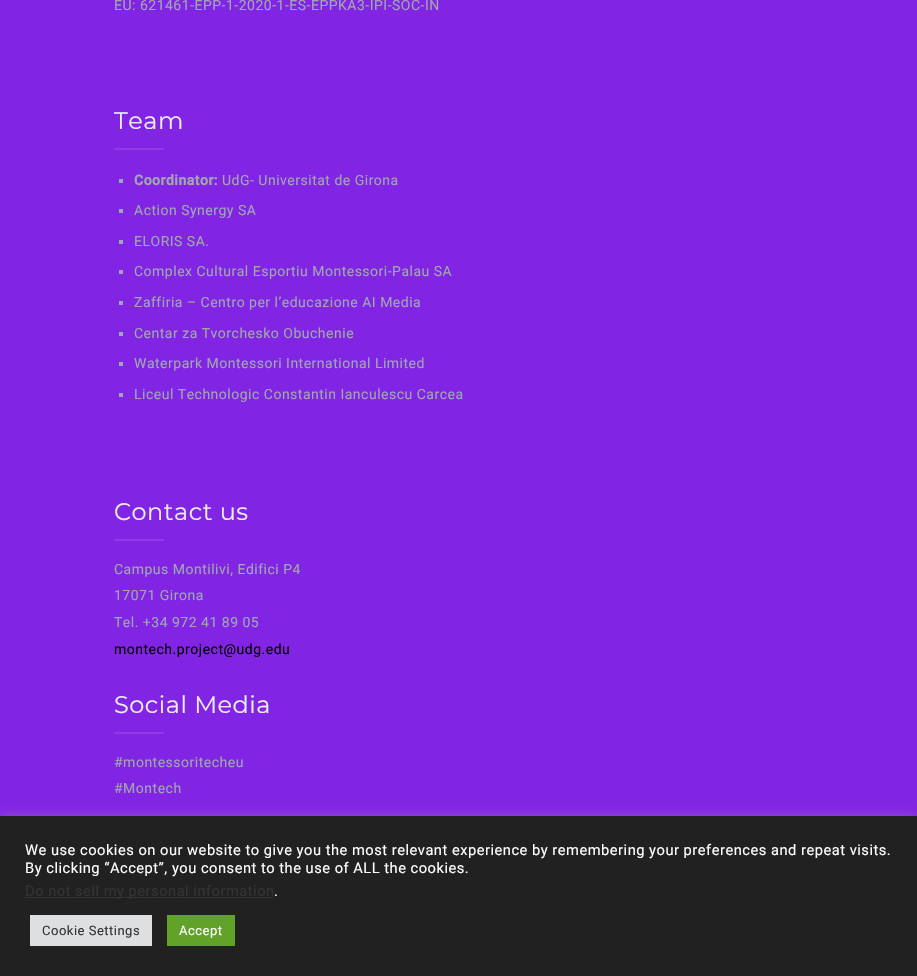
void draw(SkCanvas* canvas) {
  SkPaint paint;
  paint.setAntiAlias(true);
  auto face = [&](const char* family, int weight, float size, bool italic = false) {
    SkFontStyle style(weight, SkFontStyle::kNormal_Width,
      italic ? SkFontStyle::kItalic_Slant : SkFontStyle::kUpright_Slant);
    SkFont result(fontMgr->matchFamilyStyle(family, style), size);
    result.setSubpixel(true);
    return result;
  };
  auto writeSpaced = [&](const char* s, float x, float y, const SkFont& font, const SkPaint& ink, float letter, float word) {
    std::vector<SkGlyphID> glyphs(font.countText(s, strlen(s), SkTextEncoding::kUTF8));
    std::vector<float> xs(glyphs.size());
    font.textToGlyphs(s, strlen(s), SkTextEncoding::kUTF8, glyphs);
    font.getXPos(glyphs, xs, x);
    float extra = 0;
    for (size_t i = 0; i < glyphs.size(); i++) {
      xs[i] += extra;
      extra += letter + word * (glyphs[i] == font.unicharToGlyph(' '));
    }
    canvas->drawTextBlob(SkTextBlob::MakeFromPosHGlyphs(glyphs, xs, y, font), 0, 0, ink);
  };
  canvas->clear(0xff8224e3);
  {
    const struct { float x, y, w, h; SkColor color; } items[] = {
      {114, 148, 50, 2, 0xff8f3ae6},
      {119, 179, 4, 4, 0xff9fa7af},
      {119, 209, 4, 4, 0xff9fa7af},
      {119, 240, 4, 4, 0xff9fa7af},
      {119, 270, 4, 4, 0xff9fa7af},
      {119, 301, 4, 4, 0xff9fa7af},
      {119, 332, 4, 4, 0xff9fa7af},
      {119, 362, 4, 4, 0xff9fa7af},
      {119, 393, 4, 4, 0xff9fa7af},
      {114, 539, 50, 2, 0xff8f3ae6},
      {114, 732, 50, 2, 0xff8f3ae6},
    };
    for (auto [x, y, w, h, color] : items) {
      paint.setColor(color);
      canvas->drawRect(SkRect::MakeXYWH(x, y, w, h), paint);
    }
  }
  paint.setColor(0x4dacabab);
  paint.setMaskFilter(SkMaskFilter::MakeBlur(kNormal_SkBlurStyle, 5));
  canvas->drawRect(SkRect::MakeXYWH(0, 815, 917, 160), paint);
  paint.setMaskFilter(nullptr);
  {
    const struct { float x, y, w, h; SkColor color; } items[] = {
      {0, 816, 917, 160, 0xff212121},
      {25, 897, 249, 1, 0xff333333},
      {30, 915, 122, 31, 0xffdedfe0},
      {167, 915, 68, 31, 0xff61a229},
    };
    for (auto [x, y, w, h, color] : items) {
      paint.setColor(color);
      canvas->drawRect(SkRect::MakeXYWH(x, y, w, h), paint);
    }
  }
  auto f0 = face("Roboto", 400, 14);
  paint.setColor(0xff9fa7af);
  writeSpaced("EU: 621461-EPP-1-2020-1-ES-EPPKA3-IPI-SOC-IN", 114, 10, f0, paint, 0.5f, 0);
  auto f1 = face("Montserrat", 400, 24);
  paint.setColor(0xffebeef1);
  writeSpaced("Team", 114, 129, f1, paint, 0.5f, 0);
  auto f2 = face("Roboto", 700, 14);
  paint.setColor(0xff9fa7af);
  writeSpaced("Coordinator:", 134, 185, f2, paint, 0.5f, 0);
  {
    const struct { const char* s; float x, y; } items[] = {
      {"UdG- Universitat de Girona", 222, 185},
      {"Action Synergy SA", 134, 215},
      {"ELORIS SA.", 134, 246},
      {"Complex Cultural Esportiu Montessori-Palau SA", 134, 276},
      {"Zaffiria – Centro per l’educazione AI Media", 134, 307},
      {"Centar za Tvorchesko Obuchenie", 134, 338},
      {"Waterpark Montessori International Limited", 134, 368},
      {"Liceul Technologic Constantin Ianculescu Carcea", 134, 399},
    };
    for (auto [s, x, y] : items) {
      writeSpaced(s, x, y, f0, paint, 0.5f, 0);
    }
  }
  paint.setColor(0xffebeef1);
  writeSpaced("Contact us", 114, 520, f1, paint, 0.5f, 0);
  paint.setColor(0xff9fa7af);
  {
    const struct { const char* s; float x, y; } items[] = {
      {"Campus Montilivi, Edifici P4", 114, 574},
      {"17071 Girona", 114, 600},
      {"Tel. +34 972 41 89 05", 114, 627},
    };
    for (auto [s, x, y] : items) {
      writeSpaced(s, x, y, f0, paint, 0.5f, 0);
    }
  }
  paint.setColor(0xff000000);
  writeSpaced("montech.project@udg.edu", 114, 654, f0, paint, 0.5f, 0);
  paint.setColor(0xffebeef1);
  writeSpaced("Social Media", 114, 713, f1, paint, 0.5f, 0);
  paint.setColor(0xff9fa7af);
  writeSpaced("#montessoritecheu", 114, 767, f0, paint, 0.5f, 0);
  writeSpaced("#Montech", 114, 793, f0, paint, 0.5f, 0);
  auto f3 = face("Roboto", 400, 14.67f);
  paint.setColor(0xffffffff);
  writeSpaced("We use cookies on our website to give you the most relevant experience by remembering your preferences and repeat visits.", 25, 855, f3, paint, 0.5f, 0);
  writeSpaced("By clicking “Accept”, you consent to the use of ALL the cookies.", 25, 873, f3, paint, 0.5f, 0);
  paint.setColor(0xff333333);
  writeSpaced("Do not sell my personal information", 25, 896, f3, paint, 0.5f, 0);
  paint.setColor(0xffffffff);
  writeSpaced(".", 274, 896, f3, paint, 0.5f, 0);
  auto f4 = face("Roboto", 400, 13);
  paint.setColor(0xff333333);
  writeSpaced("Cookie Settings", 42, 935, f4, paint, 0.5f, 0);
  paint.setColor(0xffffffff);
  writeSpaced("Accept", 179, 935, f4, paint, 0.5f, 0);
}
